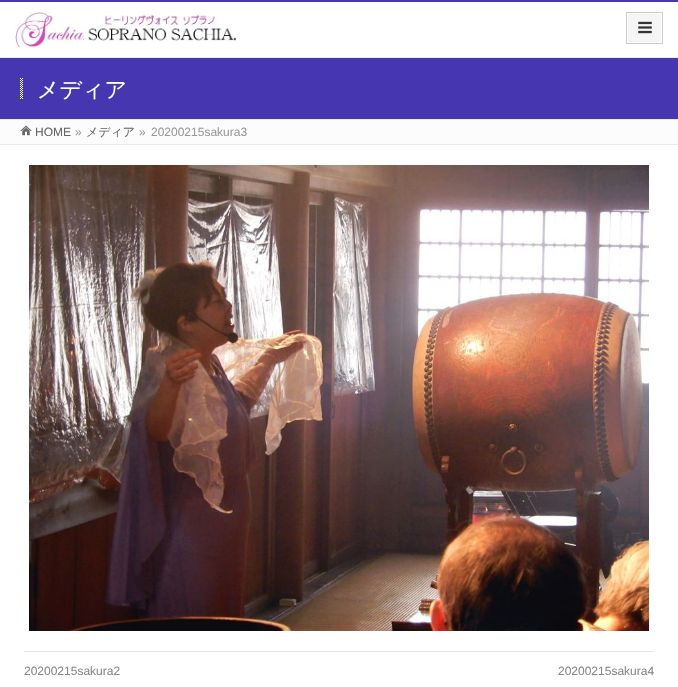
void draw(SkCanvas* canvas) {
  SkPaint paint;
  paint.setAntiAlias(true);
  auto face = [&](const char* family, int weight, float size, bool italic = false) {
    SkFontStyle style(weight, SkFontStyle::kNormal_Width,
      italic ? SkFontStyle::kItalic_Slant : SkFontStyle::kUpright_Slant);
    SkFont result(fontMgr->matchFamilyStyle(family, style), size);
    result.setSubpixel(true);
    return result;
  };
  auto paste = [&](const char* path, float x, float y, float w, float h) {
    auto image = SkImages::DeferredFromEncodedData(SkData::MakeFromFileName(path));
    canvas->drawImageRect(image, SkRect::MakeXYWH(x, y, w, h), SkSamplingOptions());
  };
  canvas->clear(0xffffffff);
  paint.setColor(0xff4636af);
  canvas->drawRect(SkRect::MakeXYWH(0, 0, 678, 2), paint);
  paste("img/1.png", 15, 12, 221, 35);
  paint.setColor(0xfff5f5f5);
  canvas->drawRect(SkRect::MakeXYWH(628, 14, 33, 28), paint);
  paint.setStroke(true);
  paint.setStrokeWidth(1);
  paint.setColor(0xffcccccc);
  canvas->drawRect(SkRect::MakeXYWH(626.5f, 12.5f, 36, 31), paint);
  paste("img/2.png", 638, 21, 14, 13);
  paint.setStroke(false);
  {
    const struct { float x, y, w, h; SkColor color; } items[] = {
      {0, 58, 678, 61, 0xff4636af},
      {0, 57, 678, 1, 0xffe9e9e9},
      {0, 119, 678, 1, 0xffe9e9e9},
    };
    for (auto [x, y, w, h, color] : items) {
      paint.setColor(color);
      canvas->drawRect(SkRect::MakeXYWH(x, y, w, h), paint);
    }
  }
  paste("img/3.png", 20, 78, 3, 21);
  paint.setColor(0xfffcfcfc);
  canvas->drawRect(SkRect::MakeXYWH(0, 120, 678, 24), paint);
  paste("img/4.png", 20, 125, 12, 11);
  paint.setColor(0xffe9e9e9);
  canvas->drawRect(SkRect::MakeXYWH(0, 144, 678, 1), paint);
  paste("img/5.png", 29, 165, 620, 466);
  paint.setColor(0xffe5e5e5);
  canvas->drawRect(SkRect::MakeXYWH(24, 651, 630, 1), paint);
  auto f0 = face("WenQuanYi Zen Hei", 500, 22);
  paint.setColor(0xffffffff);
  canvas->drawString("メディア", 37, 97, f0, paint);
  auto f1 = face("Liberation Sans", 400, 12);
  paint.setColor(0xff666666);
  canvas->drawString("HOME", 35, 136, f1, paint);
  paint.setColor(0xff999999);
  canvas->drawString("»", 75, 136, f1, paint);
  auto f2 = face("WenQuanYi Zen Hei", 500, 12);
  paint.setColor(0xff666666);
  canvas->drawString("メディア", 86, 136, f2, paint);
  paint.setColor(0xff999999);
  canvas->drawString("»", 139, 136, f1, paint);
  canvas->drawString("20200215sakura3", 151, 136, f1, paint);
  paint.setColor(0xff888888);
  canvas->drawString("20200215sakura2", 24, 675, f1, paint);
  canvas->drawString("20200215sakura4", 558, 675, f1, paint);
}
